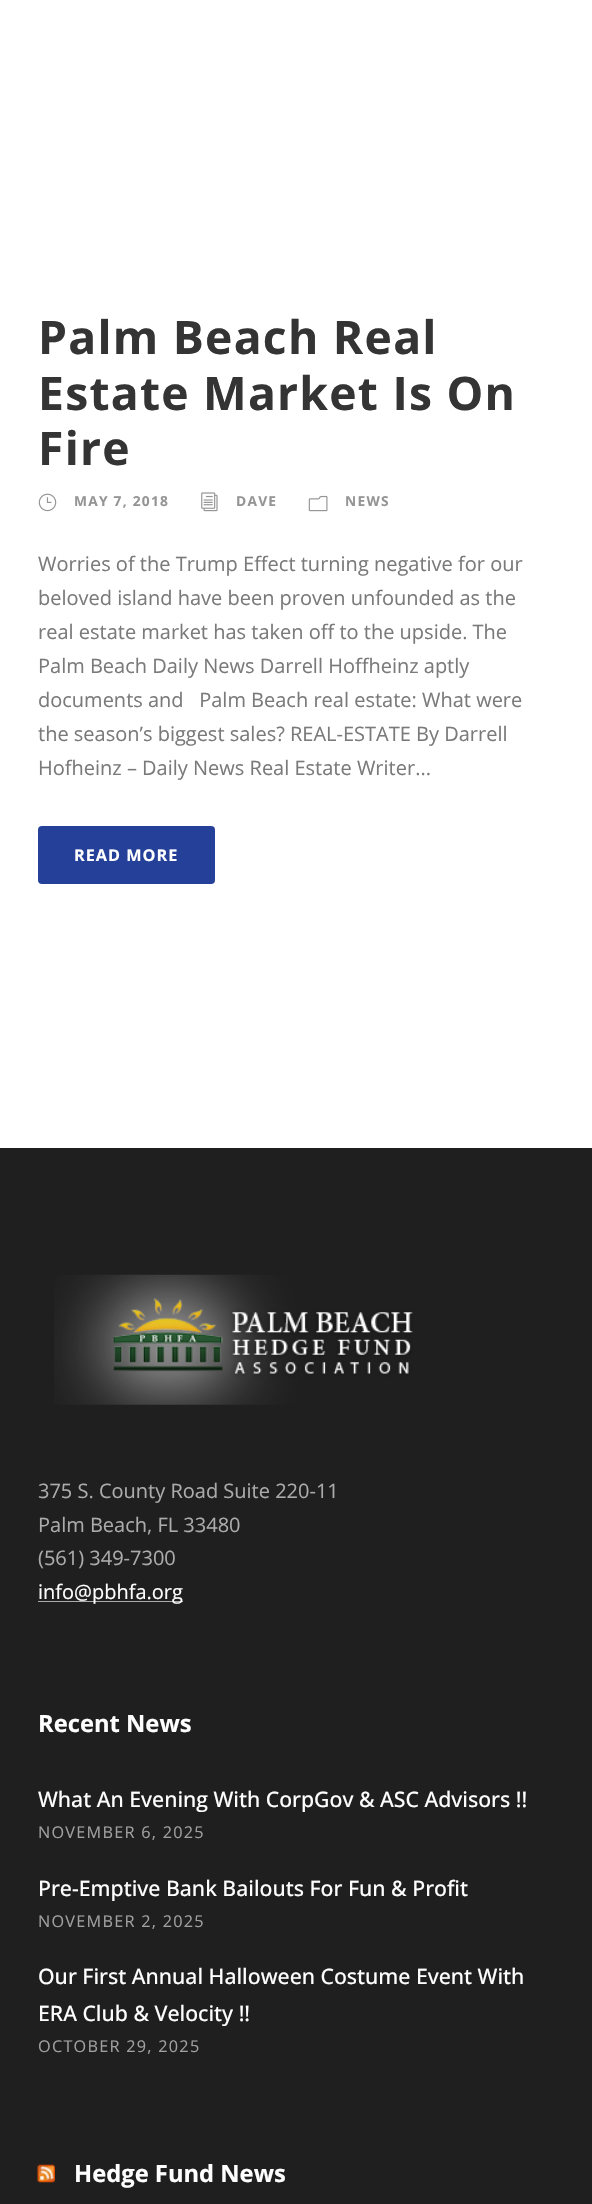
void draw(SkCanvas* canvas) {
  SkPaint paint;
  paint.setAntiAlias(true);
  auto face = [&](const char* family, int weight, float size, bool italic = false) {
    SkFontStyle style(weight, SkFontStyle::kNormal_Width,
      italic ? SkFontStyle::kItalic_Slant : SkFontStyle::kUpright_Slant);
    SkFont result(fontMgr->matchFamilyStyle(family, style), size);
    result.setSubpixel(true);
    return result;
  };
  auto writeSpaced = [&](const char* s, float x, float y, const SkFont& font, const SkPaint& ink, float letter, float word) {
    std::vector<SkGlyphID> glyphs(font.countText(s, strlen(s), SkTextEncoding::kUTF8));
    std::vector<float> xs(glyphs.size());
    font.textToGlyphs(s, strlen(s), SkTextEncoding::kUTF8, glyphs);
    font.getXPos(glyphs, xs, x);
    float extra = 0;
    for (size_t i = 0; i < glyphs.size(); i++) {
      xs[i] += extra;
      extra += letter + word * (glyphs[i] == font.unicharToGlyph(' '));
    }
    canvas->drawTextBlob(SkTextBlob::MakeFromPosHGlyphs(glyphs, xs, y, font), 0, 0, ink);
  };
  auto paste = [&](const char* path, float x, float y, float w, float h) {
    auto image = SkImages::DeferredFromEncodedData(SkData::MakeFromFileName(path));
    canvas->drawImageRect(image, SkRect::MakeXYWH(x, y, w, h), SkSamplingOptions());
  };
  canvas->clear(0xffffffff);
  paste("img/1.png", 38, 493, 19, 19);
  paste("img/2.png", 201, 492, 17, 20);
  paste("img/3.png", 308, 495, 20, 17);
  paint.setColor(0xff254099);
  canvas->drawRoundRect(SkRect::MakeXYWH(38, 826, 177, 58), 4, 4, paint);
  paint.setColor(0xff1f1f1f);
  canvas->drawRect(SkRect::MakeXYWH(0, 1148, 592, 1056), paint);
  paste("img/4.png", 54, 1274, 359, 131);
  paint.setColor(0xffababab);
  canvas->drawRect(SkRect::MakeXYWH(38, 1601, 145, 1), paint);
  paste("img/5.png", 37, 2164, 18, 19);
  auto f0 = face("Open Sans", 700, 46.25f);
  paint.setColor(0xff343434);
  {
    const struct { const char* s; float x, y; } items[] = {
      {"Palm Beach Real", 38, 354},
      {"Estate Market Is On", 38, 410},
      {"Fire", 38, 465},
    };
    for (auto [s, x, y] : items) {
      writeSpaced(s, x, y, f0, paint, 1.25f, 0);
    }
  }
  auto f1 = face("Open Sans", 700, 13.75f);
  paint.setColor(0xff959595);
  {
    const struct { const char* s; float x, y; } items[] = {
      {"MAY 7, 2018", 74, 506},
      {"DAVE", 236, 506},
      {"NEWS", 345, 506},
    };
    for (auto [s, x, y] : items) {
      writeSpaced(s, x, y, f1, paint, 1.25f, 0);
    }
  }
  auto f2 = face("Open Sans", 400, 20);
  paint.setColor(0xff7a7a7a);
  {
    const struct { const char* s; float x, y; } items[] = {
      {"Worries of the Trump Effect turning negative for our", 38, 571},
      {"beloved island have been proven unfounded as the", 38, 605},
      {"real estate market has taken off to the upside. The", 38, 639},
      {"Palm Beach Daily News Darrell Hoffheinz aptly", 38, 673},
      {"documents and   Palm Beach real estate: What were", 38, 707},
      {"the season’s biggest sales? REAL-ESTATE By Darrell", 38, 741},
      {"Hofheinz – Daily News Real Estate Writer...", 38, 775},
    };
    for (auto [s, x, y] : items) {
      canvas->drawString(s, x, y, f2, paint);
    }
  }
  auto f3 = face("Open Sans", 700, 16.25f);
  paint.setColor(0xffffffff);
  writeSpaced("READ MORE", 74, 861, f3, paint, 1, 0);
  paint.setColor(0xffababab);
  {
    const struct { const char* s; float x, y; } items[] = {
      {"375 S. County Road Suite 220-11", 38, 1498},
      {"Palm Beach, FL 33480", 38, 1532},
      {"(561) 349-7300", 38, 1565},
    };
    for (auto [s, x, y] : items) {
      canvas->drawString(s, x, y, f2, paint);
    }
  }
  paint.setColor(0xffffffff);
  canvas->drawString("info@pbhfa.org", 38, 1599, f2, paint);
  auto f4 = face("Open Sans", 700, 23.75f);
  canvas->drawString("Recent News", 38, 1732, f4, paint);
  auto f5 = face("Open Sans", 500, 21.25f);
  canvas->drawString("What An Evening With CorpGov & ASC Advisors !!", 38, 1807, f5, paint);
  auto f6 = face("Open Sans", 400, 16.25f);
  paint.setColor(0xffa0a0a0);
  writeSpaced("NOVEMBER 6, 2025", 38, 1838, f6, paint, 1.25f, 0);
  paint.setColor(0xffffffff);
  canvas->drawString("Pre-Emptive Bank Bailouts For Fun & Profit", 38, 1896, f5, paint);
  paint.setColor(0xffa0a0a0);
  writeSpaced("NOVEMBER 2, 2025", 38, 1927, f6, paint, 1.25f, 0);
  paint.setColor(0xffffffff);
  canvas->drawString("Our First Annual Halloween Costume Event With", 38, 1984, f5, paint);
  canvas->drawString("ERA Club & Velocity !!", 38, 2021, f5, paint);
  paint.setColor(0xffa0a0a0);
  writeSpaced("OCTOBER 29, 2025", 38, 2052, f6, paint, 1.25f, 0);
  paint.setColor(0xffffffff);
  canvas->drawString("Hedge Fund News", 74, 2182, f4, paint);
}
